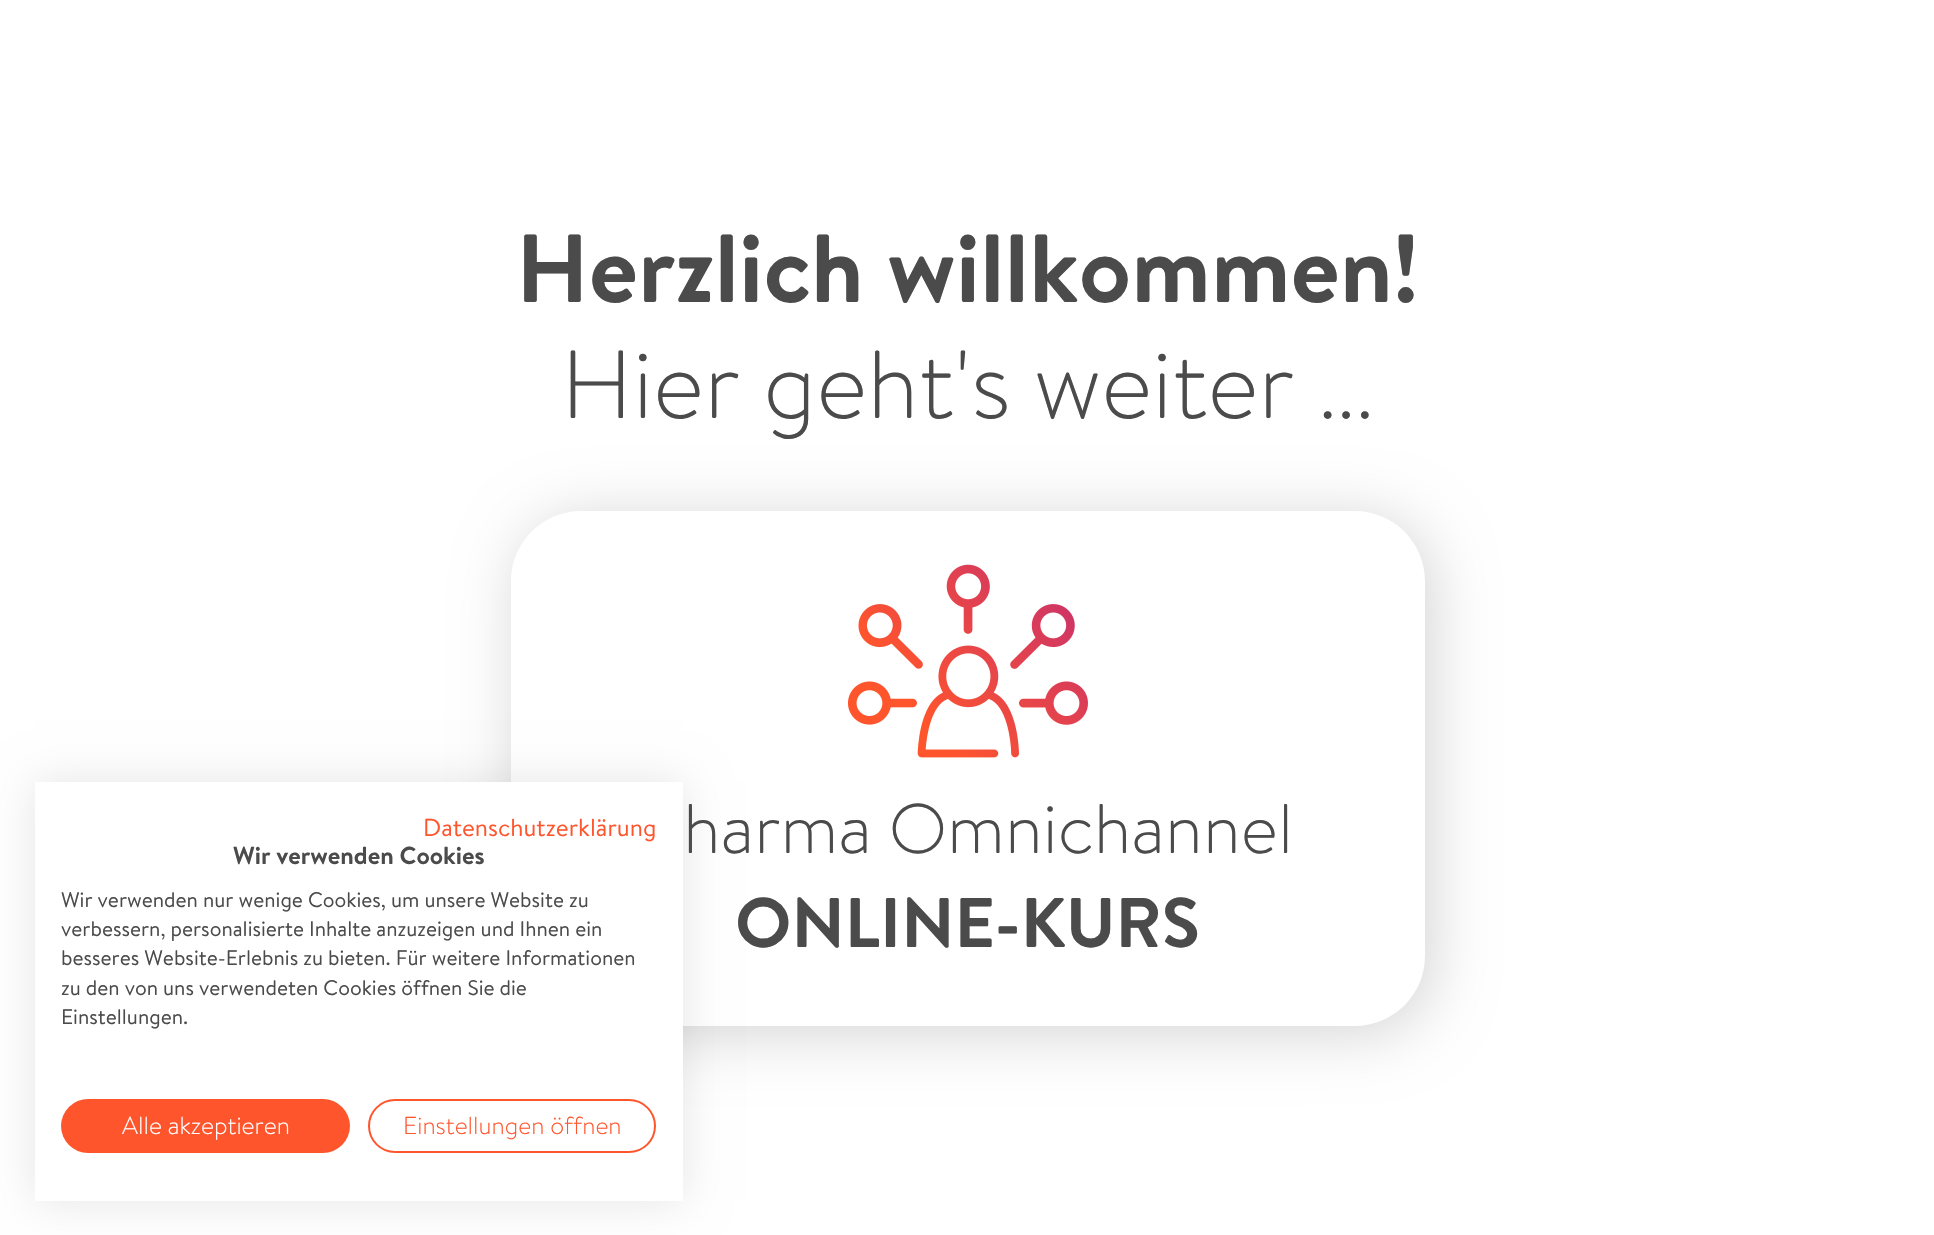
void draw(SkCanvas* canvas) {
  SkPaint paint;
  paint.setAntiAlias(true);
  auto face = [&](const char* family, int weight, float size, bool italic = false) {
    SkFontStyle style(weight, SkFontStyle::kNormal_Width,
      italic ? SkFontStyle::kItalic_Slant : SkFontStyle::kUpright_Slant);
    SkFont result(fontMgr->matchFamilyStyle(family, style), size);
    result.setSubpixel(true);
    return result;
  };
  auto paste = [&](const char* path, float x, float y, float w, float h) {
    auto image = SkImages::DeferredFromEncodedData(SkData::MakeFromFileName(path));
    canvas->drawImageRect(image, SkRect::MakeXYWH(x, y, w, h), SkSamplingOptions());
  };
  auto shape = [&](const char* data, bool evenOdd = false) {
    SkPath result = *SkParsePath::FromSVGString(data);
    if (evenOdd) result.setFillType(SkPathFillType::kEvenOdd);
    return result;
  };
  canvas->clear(0xffffffff);
  paint.setColor(0x1a000000);
  paint.setMaskFilter(SkMaskFilter::MakeBlur(kNormal_SkBlurStyle, 21));
  canvas->drawRect(SkRect::MakeXYWH(35, 782, 648, 419), paint);
  paint.setMaskFilter(nullptr);
  canvas->save();
  canvas->clipPath(shape("M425 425H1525V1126H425ZM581 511H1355C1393.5 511 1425 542.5 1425 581V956C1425 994.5 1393.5 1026 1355 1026H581C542.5 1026 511 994.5 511 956V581C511 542.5 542.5 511 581 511Z", true), true);
  paint.setColor(0x2b000000);
  paint.setMaskFilter(SkMaskFilter::MakeBlur(kNormal_SkBlurStyle, 30.5f));
  canvas->drawRoundRect(SkRect::MakeXYWH(518, 518, 914, 515), 70, 70, paint);
  paint.setMaskFilter(nullptr);
  canvas->restore();
  paint.setColor(0xffffffff);
  canvas->drawRect(SkRect::MakeXYWH(35, 782, 648, 419), paint);
  paint.setColor(0xffff552d);
  canvas->drawRoundRect(SkRect::MakeXYWH(61, 1099, 289, 54), 27, 27, paint);
  paint.setStroke(true);
  paint.setStrokeWidth(2);
  canvas->drawRoundRect(SkRect::MakeXYWH(369, 1100, 286, 52), 26, 26, paint);
  paste("img/1.png", 848, 564, 240, 194);
  auto f0 = face("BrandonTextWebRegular", 400, 24.5f);
  paint.setStroke(false);
  canvas->drawString("Datenschutzerklärung", 423, 836, f0, paint);
  auto f1 = face("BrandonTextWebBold", 700, 24.5f);
  paint.setColor(0xff4b4b4b);
  canvas->drawString("Wir verwenden Cookies", 233, 864, f1, paint);
  auto f2 = face("BrandonTextWebRegular", 400, 21);
  {
    const struct { const char* s; float x, y; } items[] = {
      {"Wir verwenden nur wenige Cookies, um unsere Website zu", 61, 907},
      {"verbessern, personalisierte Inhalte anzuzeigen und Ihnen ein", 61, 936},
      {"besseres Website-Erlebnis zu bieten. Für weitere Informationen", 61, 965},
      {"zu den von uns verwendeten Cookies öffnen Sie die", 61, 995},
      {"Einstellungen.", 61, 1024},
    };
    for (auto [s, x, y] : items) {
      canvas->drawString(s, x, y, f2, paint);
    }
  }
  auto f3 = face("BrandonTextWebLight", 300, 24.5f);
  paint.setColor(0xffffffff);
  canvas->drawString("Alle akzeptieren", 122, 1134, f3, paint);
  paint.setColor(0xffff552d);
  canvas->drawString("Einstellungen öffnen", 403, 1134, f3, paint);
  auto f4 = face("BrandonTextWebBold", 700, 96.25f);
  paint.setColor(0xff4b4b4b);
  canvas->drawString("Herzlich willkommen!", 516, 302, f4, paint);
  auto f5 = face("BrandonTextWebLight", 300, 96.25f);
  canvas->drawString("Hier geht's weiter …", 561, 418, f5, paint);
  auto f6 = face("BrandonTextWebLight", 300, 70);
  canvas->drawString("harma Omnichannel", 683, 853, f6, paint);
  auto f7 = face("BrandonTextWebBold", 700, 70);
  canvas->drawString("ONLINE-KURS", 735, 947, f7, paint);
}
